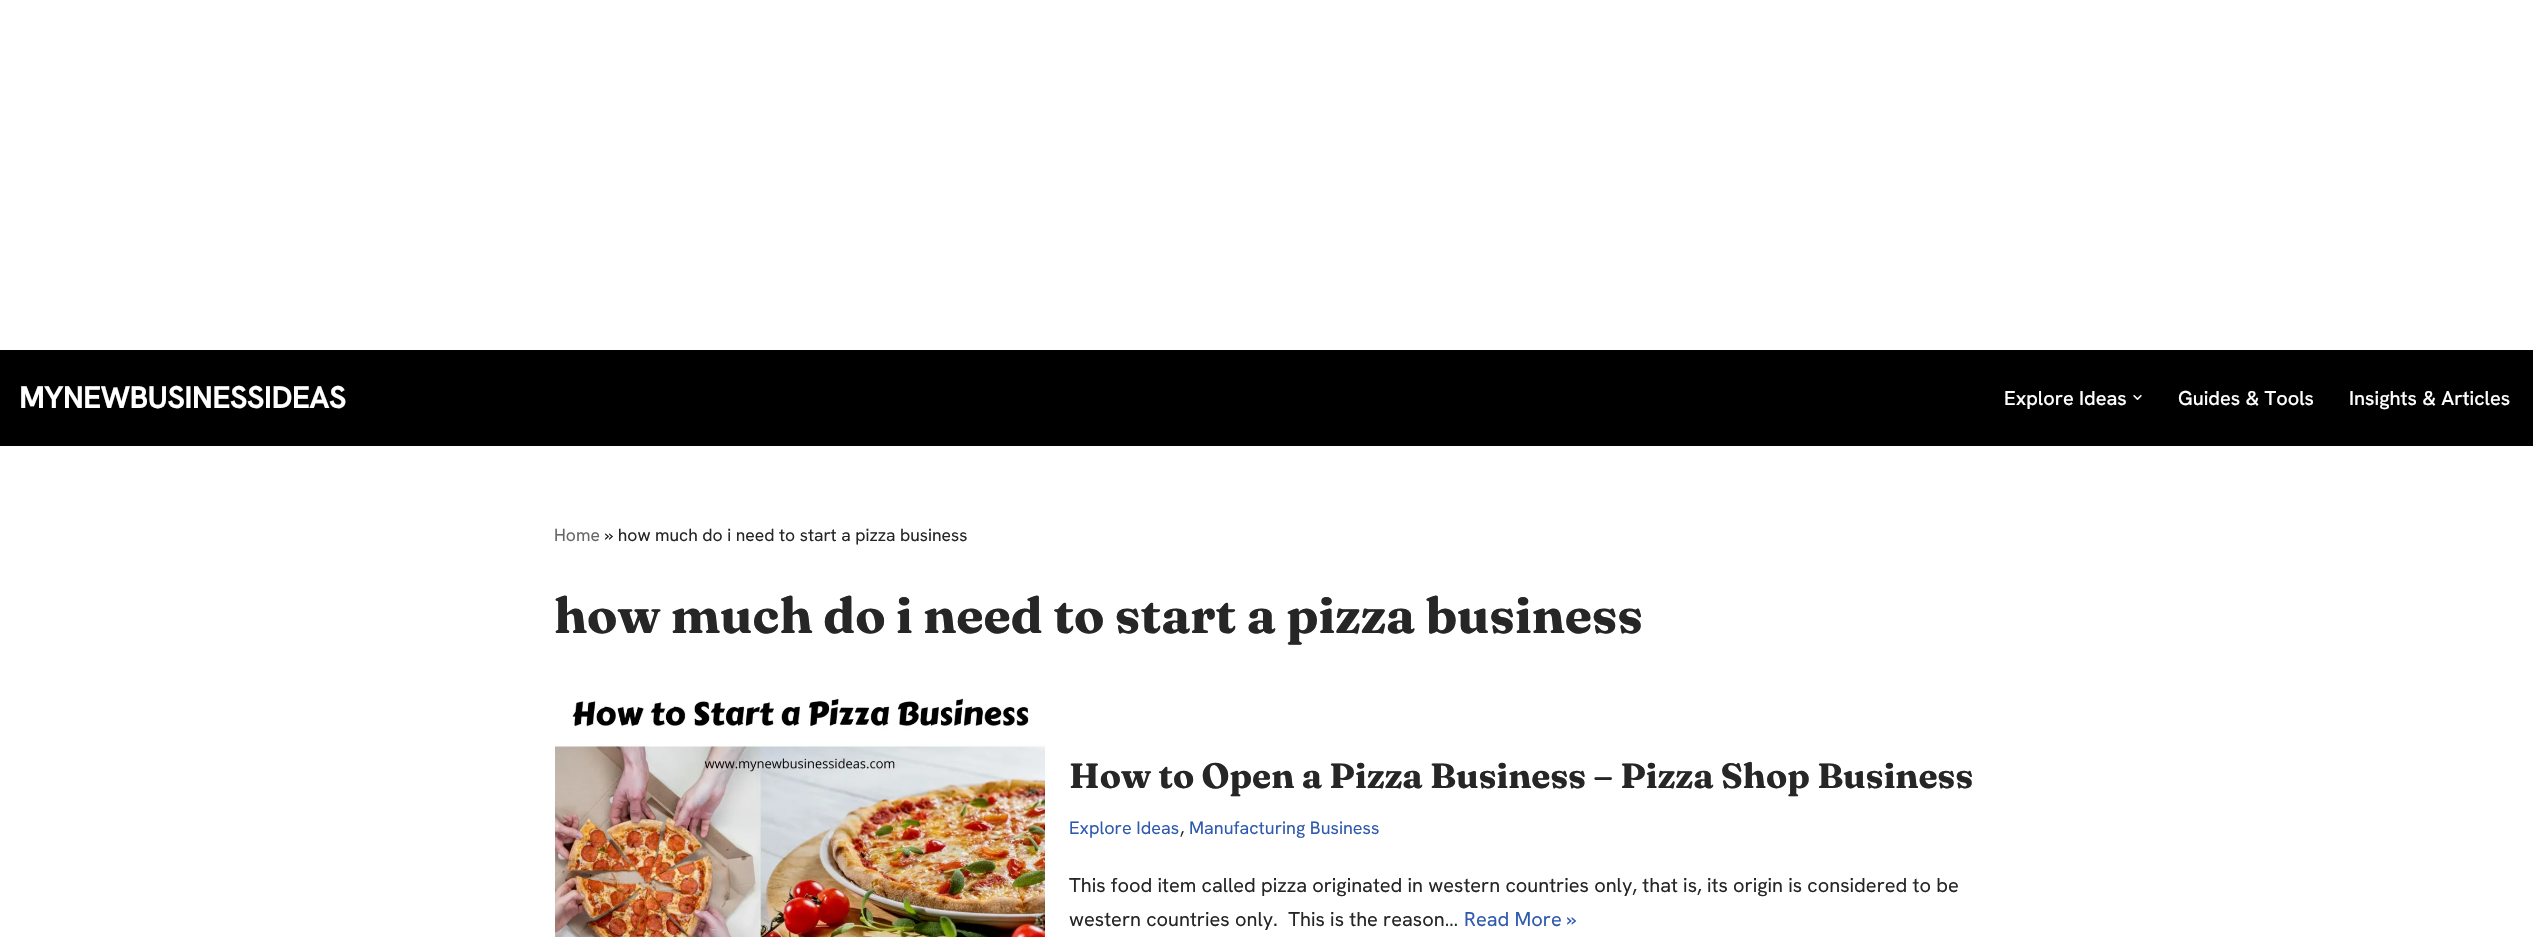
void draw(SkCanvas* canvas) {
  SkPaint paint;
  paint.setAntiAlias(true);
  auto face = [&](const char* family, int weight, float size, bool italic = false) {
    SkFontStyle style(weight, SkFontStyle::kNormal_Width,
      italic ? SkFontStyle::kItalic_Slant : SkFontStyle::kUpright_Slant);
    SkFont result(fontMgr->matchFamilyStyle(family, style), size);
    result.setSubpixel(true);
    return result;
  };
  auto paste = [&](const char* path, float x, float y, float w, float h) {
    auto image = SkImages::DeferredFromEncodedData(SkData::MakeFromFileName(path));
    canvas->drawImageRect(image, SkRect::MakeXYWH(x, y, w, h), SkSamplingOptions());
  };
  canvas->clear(0xffffffff);
  paint.setColor(0xff000000);
  canvas->drawRect(SkRect::MakeXYWH(0, 350, 2533, 96), paint);
  paste("img/1.png", 2133, 395, 9, 5);
  paste("img/2.png", 555, 698, 490, 239);
  auto f0 = face("Hanken Grotesk", 700, 30);
  paint.setColor(0xffffffff);
  canvas->drawString("MYNEWBUSINESSIDEAS", 19, 408, f0, paint);
  auto f1 = face("Hanken Grotesk", 500, 20);
  {
    const struct { const char* s; float x, y; } items[] = {
      {"Explore Ideas", 2004, 405},
      {"Guides & Tools", 2178, 405},
      {"Insights & Articles", 2349, 405},
    };
    for (auto [s, x, y] : items) {
      canvas->drawString(s, x, y, f1, paint);
    }
  }
  auto f2 = face("Hanken Grotesk", 400, 17.5f);
  paint.setColor(0xff676767);
  canvas->drawString("Home", 554, 541, f2, paint);
  paint.setColor(0xff272626);
  canvas->drawString("» how much do i need to start a pizza business", 605, 541, f2, paint);
  auto f3 = face("Fraunces", 700, 50);
  canvas->drawString("how much do i need to start a pizza business", 554, 633, f3, paint);
  auto f4 = face("Fraunces", 700, 35);
  canvas->drawString("How to Open a Pizza Business – Pizza Shop Business", 1069, 788, f4, paint);
  auto f5 = face("Hanken Grotesk", 400, 18);
  paint.setColor(0xff2f5aae);
  canvas->drawString("Explore Ideas", 1069, 834, f5, paint);
  paint.setColor(0xff272626);
  canvas->drawString(",", 1180, 834, f5, paint);
  paint.setColor(0xff2f5aae);
  canvas->drawString("Manufacturing Business", 1189, 834, f5, paint);
  auto f6 = face("Hanken Grotesk", 400, 20);
  paint.setColor(0xff272626);
  canvas->drawString("This food item called pizza originated in western countries only, that is, its origin is considered to be", 1069, 892, f6, paint);
  canvas->drawString("western countries only.  This is the reason…", 1069, 926, f6, paint);
  paint.setColor(0xff2f5aae);
  canvas->drawString("Read More »", 1464, 926, f6, paint);
}
